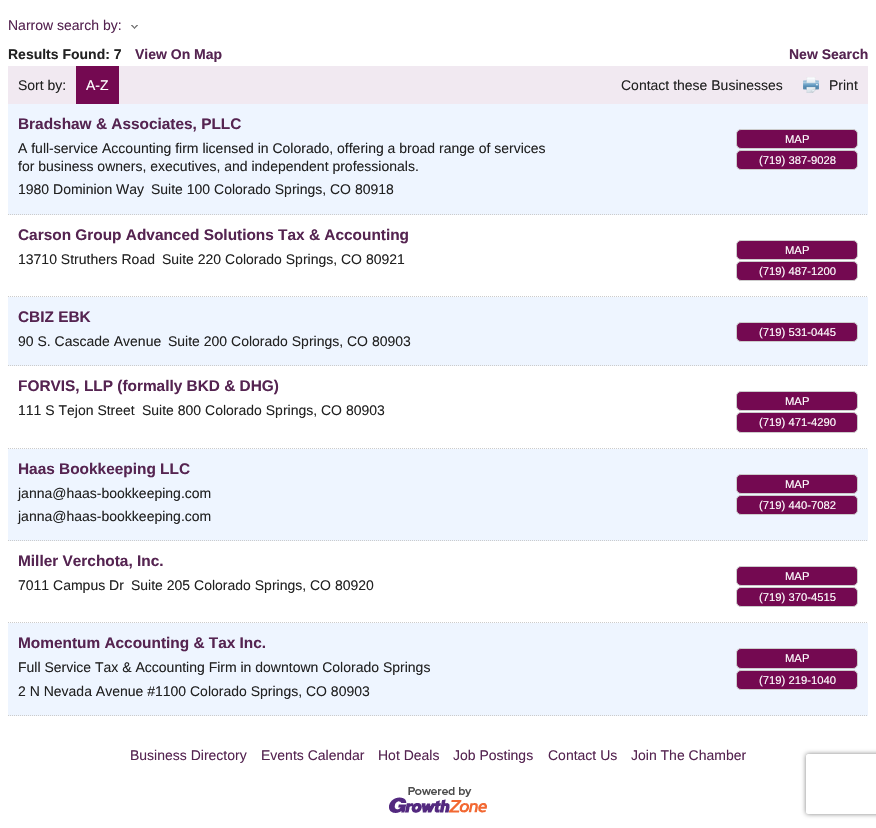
void draw(SkCanvas* canvas) {
  SkPaint paint;
  paint.setAntiAlias(true);
  auto face = [&](const char* family, int weight, float size, bool italic = false) {
    SkFontStyle style(weight, SkFontStyle::kNormal_Width,
      italic ? SkFontStyle::kItalic_Slant : SkFontStyle::kUpright_Slant);
    SkFont result(fontMgr->matchFamilyStyle(family, style), size);
    result.setSubpixel(true);
    return result;
  };
  auto paste = [&](const char* path, float x, float y, float w, float h) {
    auto image = SkImages::DeferredFromEncodedData(SkData::MakeFromFileName(path));
    canvas->drawImageRect(image, SkRect::MakeXYWH(x, y, w, h), SkSamplingOptions());
  };
  auto shape = [&](const char* data, bool evenOdd = false) {
    SkPath result = *SkParsePath::FromSVGString(data);
    if (evenOdd) result.setFillType(SkPathFillType::kEvenOdd);
    return result;
  };
  canvas->clear(0xffffffff);
  paste("img/1.png", 131, 25, 7, 4);
  paint.setColor(0xfff1e9f1);
  canvas->drawRect(SkRect::MakeXYWH(8, 66, 860, 38), paint);
  paint.setColor(0xff740951);
  canvas->drawRect(SkRect::MakeXYWH(76, 66, 43, 38), paint);
  paste("img/2.png", 803, 77, 16, 16);
  paint.setColor(0xffeef5ff);
  canvas->drawRect(SkRect::MakeXYWH(8, 104, 860, 111), paint);
  paint.setStroke(true);
  paint.setStrokeWidth(1);
  paint.setColor(0xffcccccc);
  paint.setPathEffect(SkDashPathEffect::Make({{1, 1}}, 0));
  canvas->drawPath(shape("M8 214.5H868"), paint);
  paint.setPathEffect(nullptr);
  paint.setStroke(false);
  paint.setColor(0xff740951);
  canvas->drawRoundRect(SkRect::MakeXYWH(736.5f, 129.5f, 121, 19), 4.5f, 4.5f, paint);
  paint.setStroke(true);
  paint.setColor(0xffcccccc);
  canvas->drawRoundRect(SkRect::MakeXYWH(736.5f, 129.5f, 121, 19), 4.5f, 4.5f, paint);
  paint.setStroke(false);
  paint.setColor(0xff740951);
  canvas->drawRoundRect(SkRect::MakeXYWH(736.5f, 150.5f, 121, 19), 4.5f, 4.5f, paint);
  paint.setStroke(true);
  paint.setColor(0xffcccccc);
  canvas->drawRoundRect(SkRect::MakeXYWH(736.5f, 150.5f, 121, 19), 4.5f, 4.5f, paint);
  paint.setPathEffect(SkDashPathEffect::Make({{1, 1}}, 0));
  canvas->drawPath(shape("M8 296.5H868"), paint);
  paint.setPathEffect(nullptr);
  paint.setStroke(false);
  paint.setColor(0xff740951);
  canvas->drawRoundRect(SkRect::MakeXYWH(736.5f, 240.5f, 121, 19), 4.5f, 4.5f, paint);
  paint.setStroke(true);
  paint.setColor(0xffcccccc);
  canvas->drawRoundRect(SkRect::MakeXYWH(736.5f, 240.5f, 121, 19), 4.5f, 4.5f, paint);
  paint.setStroke(false);
  paint.setColor(0xff740951);
  canvas->drawRoundRect(SkRect::MakeXYWH(736.5f, 261.5f, 121, 19), 4.5f, 4.5f, paint);
  paint.setStroke(true);
  paint.setColor(0xffcccccc);
  canvas->drawRoundRect(SkRect::MakeXYWH(736.5f, 261.5f, 121, 19), 4.5f, 4.5f, paint);
  paint.setStroke(false);
  paint.setColor(0xffeef5ff);
  canvas->drawRect(SkRect::MakeXYWH(8, 297, 860, 69), paint);
  paint.setStroke(true);
  paint.setColor(0xffcccccc);
  paint.setPathEffect(SkDashPathEffect::Make({{1, 1}}, 0));
  canvas->drawPath(shape("M8 365.5H868"), paint);
  paint.setPathEffect(nullptr);
  paint.setStroke(false);
  paint.setColor(0xff740951);
  canvas->drawRoundRect(SkRect::MakeXYWH(736.5f, 322.5f, 121, 19), 4.5f, 4.5f, paint);
  paint.setStroke(true);
  paint.setColor(0xffcccccc);
  canvas->drawRoundRect(SkRect::MakeXYWH(736.5f, 322.5f, 121, 19), 4.5f, 4.5f, paint);
  paint.setPathEffect(SkDashPathEffect::Make({{1, 1}}, 0));
  canvas->drawPath(shape("M8 448.5H868"), paint);
  paint.setPathEffect(nullptr);
  paint.setStroke(false);
  paint.setColor(0xff740951);
  canvas->drawRoundRect(SkRect::MakeXYWH(736.5f, 391.5f, 121, 19), 4.5f, 4.5f, paint);
  paint.setStroke(true);
  paint.setColor(0xffcccccc);
  canvas->drawRoundRect(SkRect::MakeXYWH(736.5f, 391.5f, 121, 19), 4.5f, 4.5f, paint);
  paint.setStroke(false);
  paint.setColor(0xff740951);
  canvas->drawRoundRect(SkRect::MakeXYWH(736.5f, 412.5f, 121, 20), 4.5f, 4.5f, paint);
  paint.setStroke(true);
  paint.setColor(0xffcccccc);
  canvas->drawRoundRect(SkRect::MakeXYWH(736.5f, 412.5f, 121, 20), 4.5f, 4.5f, paint);
  paint.setStroke(false);
  paint.setColor(0xffeef5ff);
  canvas->drawRect(SkRect::MakeXYWH(8, 449, 860, 92), paint);
  paint.setStroke(true);
  paint.setColor(0xffcccccc);
  paint.setPathEffect(SkDashPathEffect::Make({{1, 1}}, 0));
  canvas->drawPath(shape("M8 540.5H868"), paint);
  paint.setPathEffect(nullptr);
  paint.setStroke(false);
  paint.setColor(0xff740951);
  canvas->drawRoundRect(SkRect::MakeXYWH(736.5f, 474.5f, 121, 19), 4.5f, 4.5f, paint);
  paint.setStroke(true);
  paint.setColor(0xffcccccc);
  canvas->drawRoundRect(SkRect::MakeXYWH(736.5f, 474.5f, 121, 19), 4.5f, 4.5f, paint);
  paint.setStroke(false);
  paint.setColor(0xff740951);
  canvas->drawRoundRect(SkRect::MakeXYWH(736.5f, 495.5f, 121, 19), 4.5f, 4.5f, paint);
  paint.setStroke(true);
  paint.setColor(0xffcccccc);
  canvas->drawRoundRect(SkRect::MakeXYWH(736.5f, 495.5f, 121, 19), 4.5f, 4.5f, paint);
  paint.setPathEffect(SkDashPathEffect::Make({{1, 1}}, 0));
  canvas->drawPath(shape("M8 622.5H868"), paint);
  paint.setPathEffect(nullptr);
  paint.setStroke(false);
  paint.setColor(0xff740951);
  canvas->drawRoundRect(SkRect::MakeXYWH(736.5f, 566.5f, 121, 19), 4.5f, 4.5f, paint);
  paint.setStroke(true);
  paint.setColor(0xffcccccc);
  canvas->drawRoundRect(SkRect::MakeXYWH(736.5f, 566.5f, 121, 19), 4.5f, 4.5f, paint);
  paint.setStroke(false);
  paint.setColor(0xff740951);
  canvas->drawRoundRect(SkRect::MakeXYWH(736.5f, 587.5f, 121, 19), 4.5f, 4.5f, paint);
  paint.setStroke(true);
  paint.setColor(0xffcccccc);
  canvas->drawRoundRect(SkRect::MakeXYWH(736.5f, 587.5f, 121, 19), 4.5f, 4.5f, paint);
  paint.setStroke(false);
  paint.setColor(0xffeef5ff);
  canvas->drawRect(SkRect::MakeXYWH(8, 623, 860, 93), paint);
  paint.setStroke(true);
  paint.setColor(0xffcccccc);
  paint.setPathEffect(SkDashPathEffect::Make({{1, 1}}, 0));
  canvas->drawPath(shape("M8 715.5H868"), paint);
  paint.setPathEffect(nullptr);
  paint.setStroke(false);
  paint.setColor(0xff740951);
  canvas->drawRoundRect(SkRect::MakeXYWH(736.5f, 648.5f, 121, 20), 4.5f, 4.5f, paint);
  paint.setStroke(true);
  paint.setColor(0xffcccccc);
  canvas->drawRoundRect(SkRect::MakeXYWH(736.5f, 648.5f, 121, 20), 4.5f, 4.5f, paint);
  paint.setStroke(false);
  paint.setColor(0xff740951);
  canvas->drawRoundRect(SkRect::MakeXYWH(736.5f, 670.5f, 121, 19), 4.5f, 4.5f, paint);
  paint.setStroke(true);
  paint.setColor(0xffcccccc);
  canvas->drawRoundRect(SkRect::MakeXYWH(736.5f, 670.5f, 121, 19), 4.5f, 4.5f, paint);
  paste("img/3.png", 389, 787, 98, 26);
  canvas->save();
  canvas->clipPath(shape("M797 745H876V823H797ZM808 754H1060C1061 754 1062 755 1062 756V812C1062 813 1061 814 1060 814H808C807 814 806 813 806 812V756C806 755 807 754 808 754Z", true), true);
  paint.setStroke(false);
  paint.setColor(0xff808080);
  paint.setMaskFilter(SkMaskFilter::MakeBlur(kNormal_SkBlurStyle, 2.5f));
  canvas->drawRoundRect(SkRect::MakeXYWH(806, 754, 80, 60), 2, 2, paint);
  paint.setMaskFilter(nullptr);
  canvas->restore();
  auto f0 = face("Liberation Sans", 400, 14);
  paint.setColor(0xff552451);
  canvas->drawString("Narrow search by:", 8, 30, f0, paint);
  auto f1 = face("Liberation Sans", 700, 14);
  paint.setColor(0xff222222);
  canvas->drawString("Results Found: 7", 8, 59, f1, paint);
  paint.setColor(0xff552451);
  canvas->drawString("View On Map", 135, 59, f1, paint);
  canvas->drawString("New Search", 789, 59, f1, paint);
  paint.setColor(0xff222222);
  canvas->drawString("Sort by:", 18, 90, f0, paint);
  paint.setColor(0xffffffff);
  canvas->drawString("A-Z", 86, 90, f0, paint);
  paint.setColor(0xff222222);
  canvas->drawString("Contact these Businesses", 621, 90, f0, paint);
  canvas->drawString("Print", 829, 90, f0, paint);
  auto f2 = face("Liberation Sans", 700, 15.4f);
  paint.setColor(0xff552451);
  canvas->drawString("Bradshaw & Associates, PLLC", 18, 129, f2, paint);
  paint.setColor(0xff222222);
  {
    const struct { const char* s; float x, y; } items[] = {
      {"A full-service Accounting firm licensed in Colorado, offering a broad range of services", 18, 153},
      {"for business owners, executives, and independent professionals.", 18, 171},
      {"1980 Dominion Way", 18, 194},
      {"Suite 100 Colorado Springs, CO 80918", 151, 194},
    };
    for (auto [s, x, y] : items) {
      canvas->drawString(s, x, y, f0, paint);
    }
  }
  auto f3 = face("Liberation Sans", 400, 11.25f);
  paint.setColor(0xffffffff);
  canvas->drawString("MAP", 785, 143, f3, paint);
  canvas->drawString("(719) 387-9028", 759, 164, f3, paint);
  paint.setColor(0xff552451);
  canvas->drawString("Carson Group Advanced Solutions Tax & Accounting", 18, 240, f2, paint);
  paint.setColor(0xff222222);
  canvas->drawString("13710 Struthers Road", 18, 264, f0, paint);
  canvas->drawString("Suite 220 Colorado Springs, CO 80921", 162, 264, f0, paint);
  paint.setColor(0xffffffff);
  canvas->drawString("MAP", 785, 254, f3, paint);
  canvas->drawString("(719) 487-1200", 759, 275, f3, paint);
  paint.setColor(0xff552451);
  canvas->drawString("CBIZ EBK", 18, 322, f2, paint);
  paint.setColor(0xff222222);
  canvas->drawString("90 S. Cascade Avenue", 18, 346, f0, paint);
  canvas->drawString("Suite 200 Colorado Springs, CO 80903", 168, 346, f0, paint);
  paint.setColor(0xffffffff);
  canvas->drawString("(719) 531-0445", 759, 336, f3, paint);
  paint.setColor(0xff552451);
  canvas->drawString("FORVIS, LLP (formally BKD & DHG)", 18, 391, f2, paint);
  paint.setColor(0xff222222);
  canvas->drawString("111 S Tejon Street", 18, 415, f0, paint);
  canvas->drawString("Suite 800 Colorado Springs, CO 80903", 142, 415, f0, paint);
  paint.setColor(0xffffffff);
  canvas->drawString("MAP", 785, 405, f3, paint);
  canvas->drawString("(719) 471-4290", 759, 426, f3, paint);
  paint.setColor(0xff552451);
  canvas->drawString("Haas Bookkeeping LLC", 18, 474, f2, paint);
  paint.setColor(0xff222222);
  canvas->drawString("janna@haas-bookkeeping.com", 18, 498, f0, paint);
  canvas->drawString("janna@haas-bookkeeping.com", 18, 521, f0, paint);
  paint.setColor(0xffffffff);
  canvas->drawString("MAP", 785, 488, f3, paint);
  canvas->drawString("(719) 440-7082", 759, 509, f3, paint);
  paint.setColor(0xff552451);
  canvas->drawString("Miller Verchota, Inc.", 18, 566, f2, paint);
  paint.setColor(0xff222222);
  canvas->drawString("7011 Campus Dr", 18, 590, f0, paint);
  canvas->drawString("Suite 205 Colorado Springs, CO 80920", 131, 590, f0, paint);
  paint.setColor(0xffffffff);
  canvas->drawString("MAP", 785, 580, f3, paint);
  canvas->drawString("(719) 370-4515", 759, 601, f3, paint);
  paint.setColor(0xff552451);
  canvas->drawString("Momentum Accounting & Tax Inc.", 18, 648, f2, paint);
  paint.setColor(0xff222222);
  canvas->drawString("Full Service Tax & Accounting Firm in downtown Colorado Springs", 18, 672, f0, paint);
  canvas->drawString("2 N Nevada Avenue #1100 Colorado Springs, CO 80903", 18, 696, f0, paint);
  paint.setColor(0xffffffff);
  canvas->drawString("MAP", 785, 662, f3, paint);
  canvas->drawString("(719) 219-1040", 759, 684, f3, paint);
  paint.setColor(0xff552451);
  {
    const struct { const char* s; float x, y; } items[] = {
      {"Business Directory", 130, 760},
      {"Events Calendar", 261, 760},
      {"Hot Deals", 378, 760},
      {"Job Postings", 453, 760},
      {"Contact Us", 548, 760},
      {"Join The Chamber", 631, 760},
    };
    for (auto [s, x, y] : items) {
      canvas->drawString(s, x, y, f0, paint);
    }
  }
}
